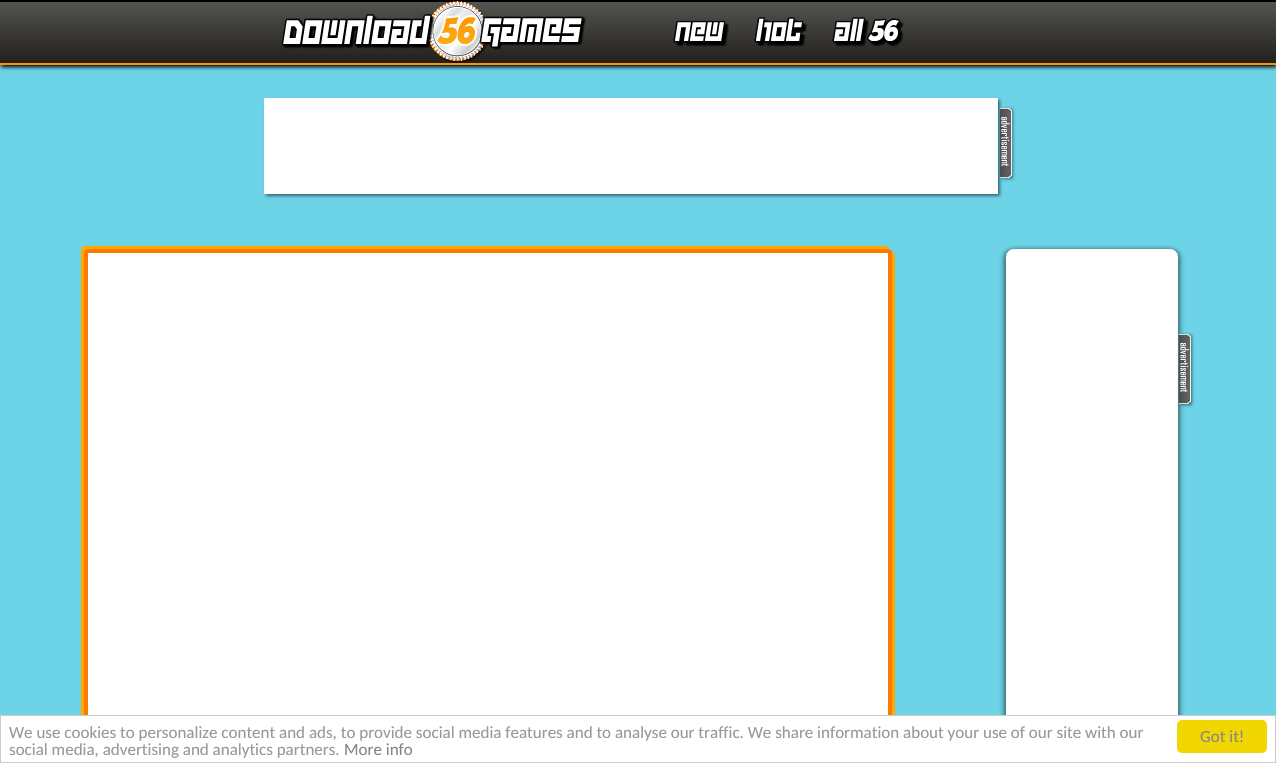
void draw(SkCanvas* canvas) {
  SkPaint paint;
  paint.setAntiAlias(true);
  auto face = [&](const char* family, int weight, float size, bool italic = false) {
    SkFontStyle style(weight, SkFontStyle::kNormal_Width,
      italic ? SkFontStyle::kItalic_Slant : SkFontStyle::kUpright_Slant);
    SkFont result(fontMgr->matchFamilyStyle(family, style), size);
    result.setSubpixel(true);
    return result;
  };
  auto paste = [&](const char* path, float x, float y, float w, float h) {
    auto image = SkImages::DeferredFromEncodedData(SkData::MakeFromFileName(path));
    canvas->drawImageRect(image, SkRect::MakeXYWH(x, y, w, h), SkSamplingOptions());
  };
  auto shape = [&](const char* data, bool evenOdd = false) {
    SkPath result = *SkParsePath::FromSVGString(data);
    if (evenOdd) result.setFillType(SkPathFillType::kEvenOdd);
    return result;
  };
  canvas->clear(0xff6dd3e7);
  paint.setColor(0xff000000);
  paint.setMaskFilter(SkMaskFilter::MakeBlur(kNormal_SkBlurStyle, 2));
  canvas->drawRect(SkRect::MakeXYWH(1, 2, 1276, 65), paint);
  paint.setMaskFilter(nullptr);
  {
    const SkColor colors[] = {0xff53534f, 0xff22201c};
    const float stops[] = {0, 1};
    const SkPoint ends[] = {{638, 2}, {638, 63}};
    paint.setShader(SkGradientShader::MakeLinear(ends, colors, stops, 2, SkTileMode::kClamp));
    paint.setAlpha(255);
  }
  canvas->drawRect(SkRect::MakeXYWH(0, 2, 1276, 61), paint);
  paint.setShader(nullptr);
  paint.setColor(0xff000000);
  canvas->drawRect(SkRect::MakeXYWH(0, 0, 1276, 2), paint);
  paint.setColor(0xffff9000);
  canvas->drawRect(SkRect::MakeXYWH(0, 63, 1276, 2), paint);
  paste("img/1.png", 281, 1, 305, 62);
  paste("img/2.png", 673, 20, 56, 27);
  paste("img/3.png", 754, 17, 53, 30);
  paste("img/4.png", 832, 17, 72, 30);
  paint.setColor(0xff366a74);
  paint.setMaskFilter(SkMaskFilter::MakeBlur(kNormal_SkBlurStyle, 1.5f));
  canvas->drawRect(SkRect::MakeXYWH(266, 100, 734, 96), paint);
  paint.setMaskFilter(nullptr);
  paint.setColor(0xffffffff);
  canvas->drawRect(SkRect::MakeXYWH(264, 98, 734, 96), paint);
  paint.setColor(0xff3a7b88);
  paint.setMaskFilter(SkMaskFilter::MakeBlur(kNormal_SkBlurStyle, 1.5f));
  canvas->drawRect(SkRect::MakeXYWH(1001, 109, 12, 70), paint);
  paint.setMaskFilter(nullptr);
  paste("img/5.png", 1000, 108, 12, 70);
  paint.setColor(0xffffa800);
  canvas->drawPath(shape("M85 246C83 246 81 248 81 250V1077C81 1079 82 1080 84 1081V253C84 251 86 249 88 249H889C888 247 887 246 885 246Z"), paint);
  canvas->drawPath(shape("M87 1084C88 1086 89 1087 91 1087H891C893 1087 895 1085 895 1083V256C895 254 894 253 892 252V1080C892 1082 890 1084 888 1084Z"), paint);
  paint.setColor(0xffffffff);
  canvas->drawRoundRect(SkRect::MakeXYWH(86, 251, 804, 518), 2, 2, paint);
  paint.setStroke(true);
  paint.setStrokeWidth(4);
  paint.setColor(0xffff7800);
  canvas->drawRoundRect(SkRect::MakeXYWH(86, 251, 804, 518), 2, 2, paint);
  paint.setStroke(false);
  paint.setColor(0xff366a74);
  paint.setMaskFilter(SkMaskFilter::MakeBlur(kNormal_SkBlurStyle, 2.5f));
  canvas->drawRoundRect(SkRect::MakeXYWH(1004, 250, 172, 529), 8, 8, paint);
  paint.setMaskFilter(nullptr);
  paint.setMaskFilter(SkMaskFilter::MakeBlur(kNormal_SkBlurStyle, 2.5f));
  canvas->drawRoundRect(SkRect::MakeXYWH(1008, 250, 172, 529), 8, 8, paint);
  paint.setMaskFilter(nullptr);
  paint.setColor(0xffffffff);
  canvas->drawRoundRect(SkRect::MakeXYWH(1007.5f, 250.5f, 169, 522), 6.5f, 6.5f, paint);
  paint.setStroke(true);
  paint.setStrokeWidth(3);
  canvas->drawRoundRect(SkRect::MakeXYWH(1007.5f, 250.5f, 169, 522), 6.5f, 6.5f, paint);
  paint.setStroke(false);
  paint.setColor(0xff366a74);
  paint.setMaskFilter(SkMaskFilter::MakeBlur(kNormal_SkBlurStyle, 1.5f));
  canvas->drawRect(SkRect::MakeXYWH(1180, 335, 12, 70), paint);
  paint.setMaskFilter(nullptr);
  paste("img/5.png", 1179, 334, 12, 70);
  paint.setColor(0xffffffff);
  canvas->drawRect(SkRect::MakeXYWH(0.5f, 715.5f, 1275, 47), paint);
  paint.setStroke(true);
  paint.setStrokeWidth(1);
  paint.setColor(0xffcccccc);
  canvas->drawRect(SkRect::MakeXYWH(0.5f, 715.5f, 1275, 47), paint);
  paint.setStroke(false);
  paint.setColor(0xfff1d600);
  canvas->drawRoundRect(SkRect::MakeXYWH(1177, 720, 90, 33), 5, 5, paint);
  auto f0 = face("Carlito", 400, 17);
  paint.setColor(0xff999999);
  canvas->drawString("We use cookies to personalize content and ads, to provide social media features and to analyse our traffic. We share information about your use of our site with our", 9, 738, f0, paint);
  canvas->drawString("social media, advertising and analytics partners.", 9, 755, f0, paint);
  paint.setColor(0xff868686);
  canvas->drawString("More info", 344, 755, f0, paint);
  canvas->drawString("Got it!", 1200, 742, f0, paint);
}
